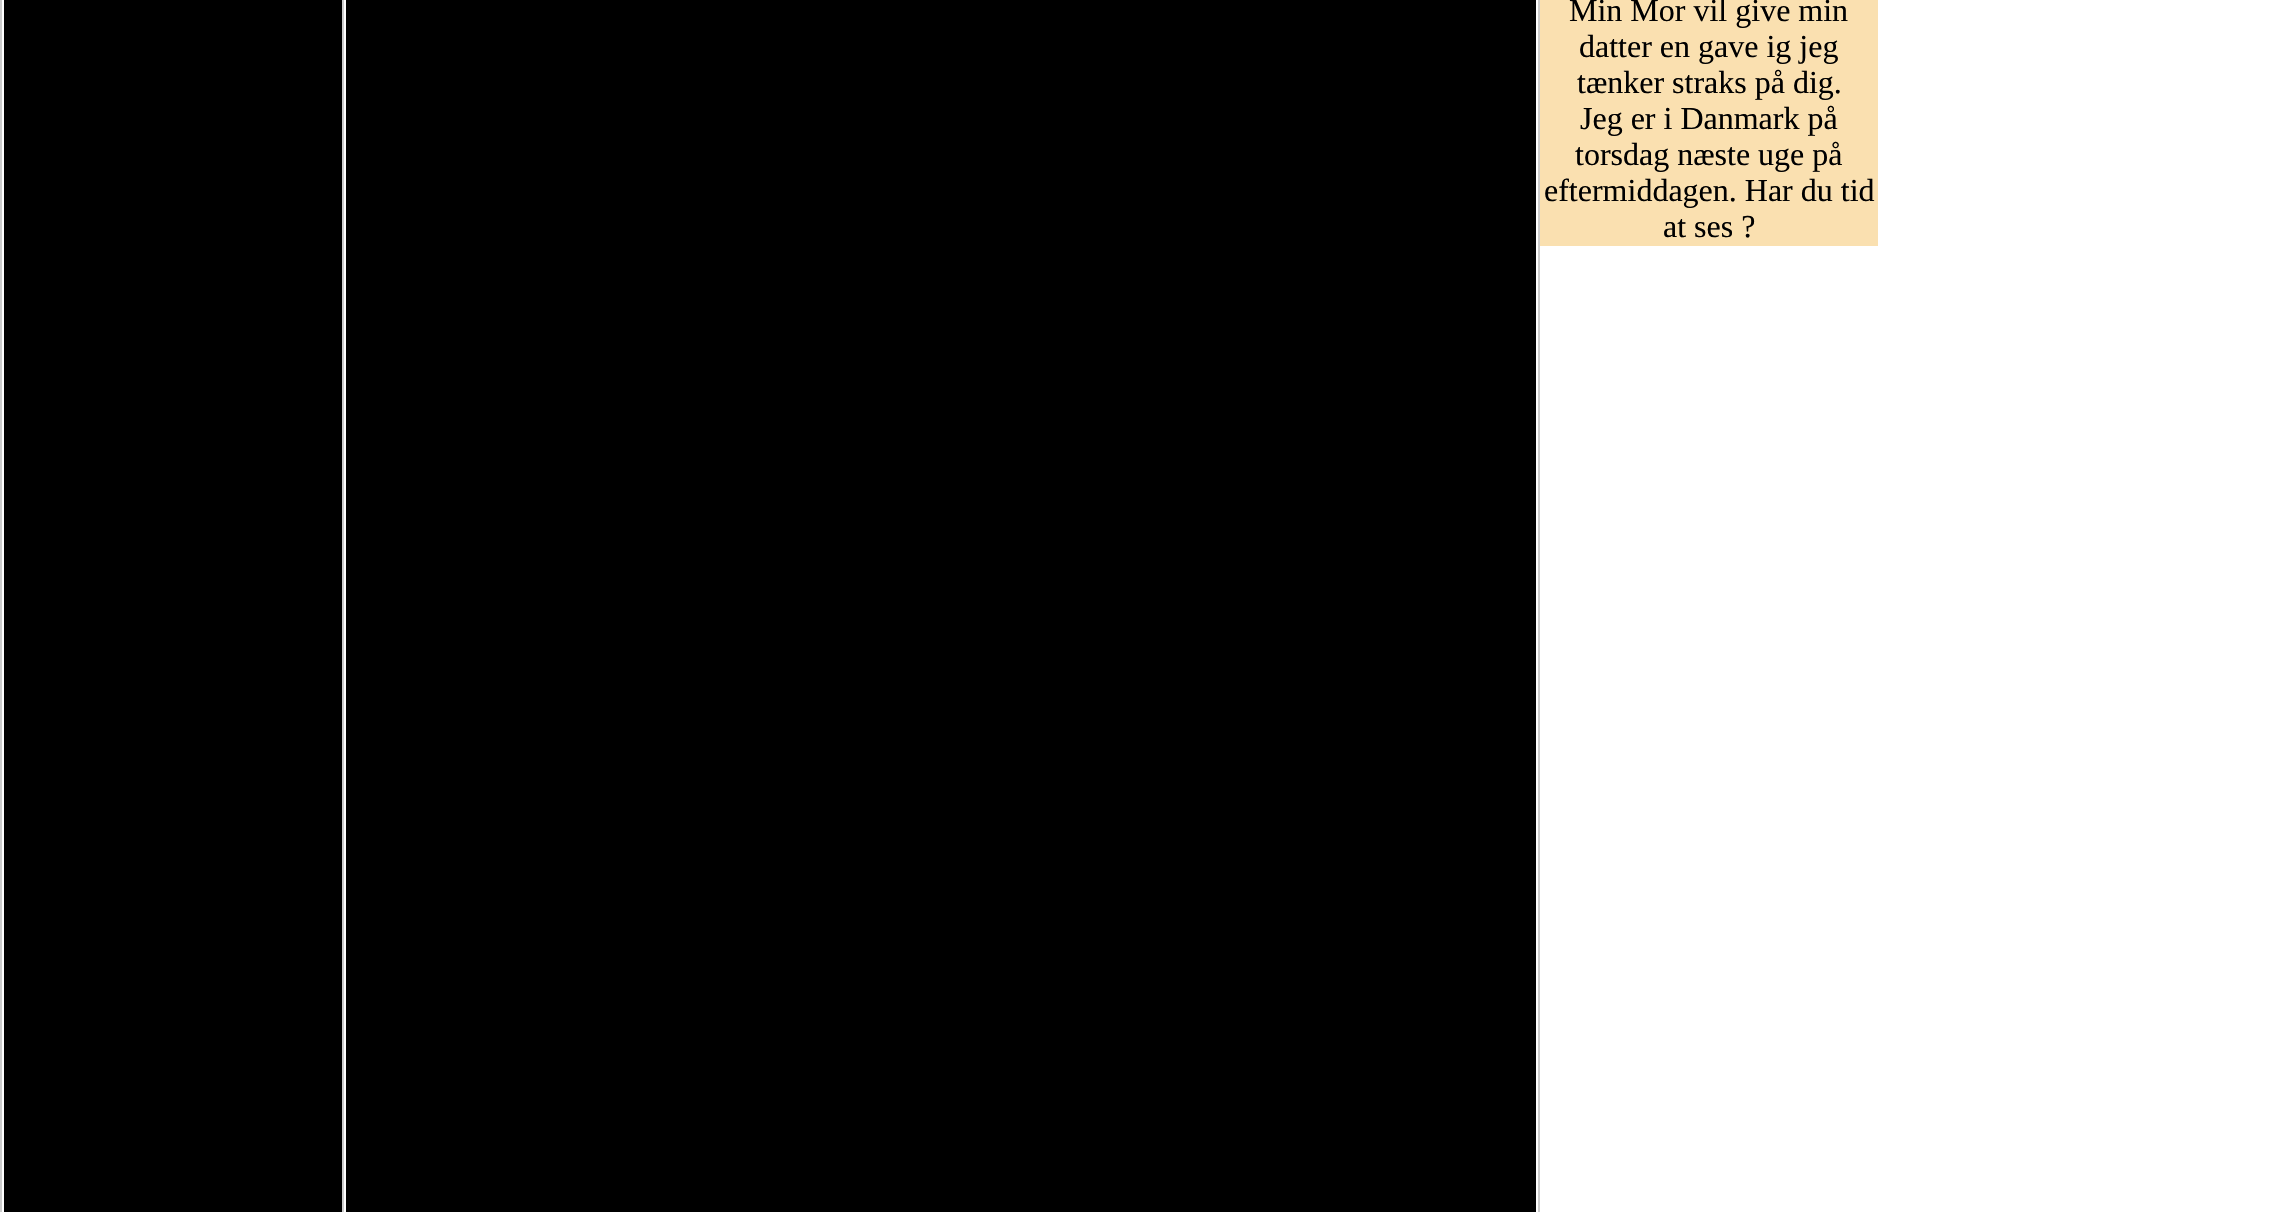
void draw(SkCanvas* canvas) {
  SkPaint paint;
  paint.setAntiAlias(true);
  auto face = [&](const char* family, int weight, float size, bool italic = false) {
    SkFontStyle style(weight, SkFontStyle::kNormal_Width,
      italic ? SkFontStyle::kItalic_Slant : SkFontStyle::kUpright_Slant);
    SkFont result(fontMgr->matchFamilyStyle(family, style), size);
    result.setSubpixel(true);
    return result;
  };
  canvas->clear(0xffffffff);
  {
    const struct { float x, y, w, h; SkColor color; } items[] = {
      {0, 0, 2, 1212, 0xffcccccc},
      {4, 0, 338, 1212, 0xff000000},
      {342, 0, 2, 1212, 0xffcccccc},
      {346, 0, 1190, 1212, 0xff000000},
      {1538, 0, 2, 1212, 0xffcccccc},
      {1540, 0, 338, 246, 0xfffae0b0},
    };
    for (auto [x, y, w, h, color] : items) {
      paint.setColor(color);
      canvas->drawRect(SkRect::MakeXYWH(x, y, w, h), paint);
    }
  }
  auto f0 = face("Liberation Serif", 400, 32);
  paint.setColor(0xff000000);
  {
    const struct { const char* s; float x, y; } items[] = {
      {"Min Mor vil give min", 1569, 21},
      {"datter en gave ig jeg", 1579, 57},
      {"tænker straks på dig.", 1577, 93},
      {"Jeg er i Danmark på", 1580, 129},
      {"torsdag næste uge på", 1575, 165},
      {"eftermiddagen. Har du tid", 1544, 201},
      {"at ses ?", 1663, 237},
    };
    for (auto [s, x, y] : items) {
      canvas->drawString(s, x, y, f0, paint);
    }
  }
}
